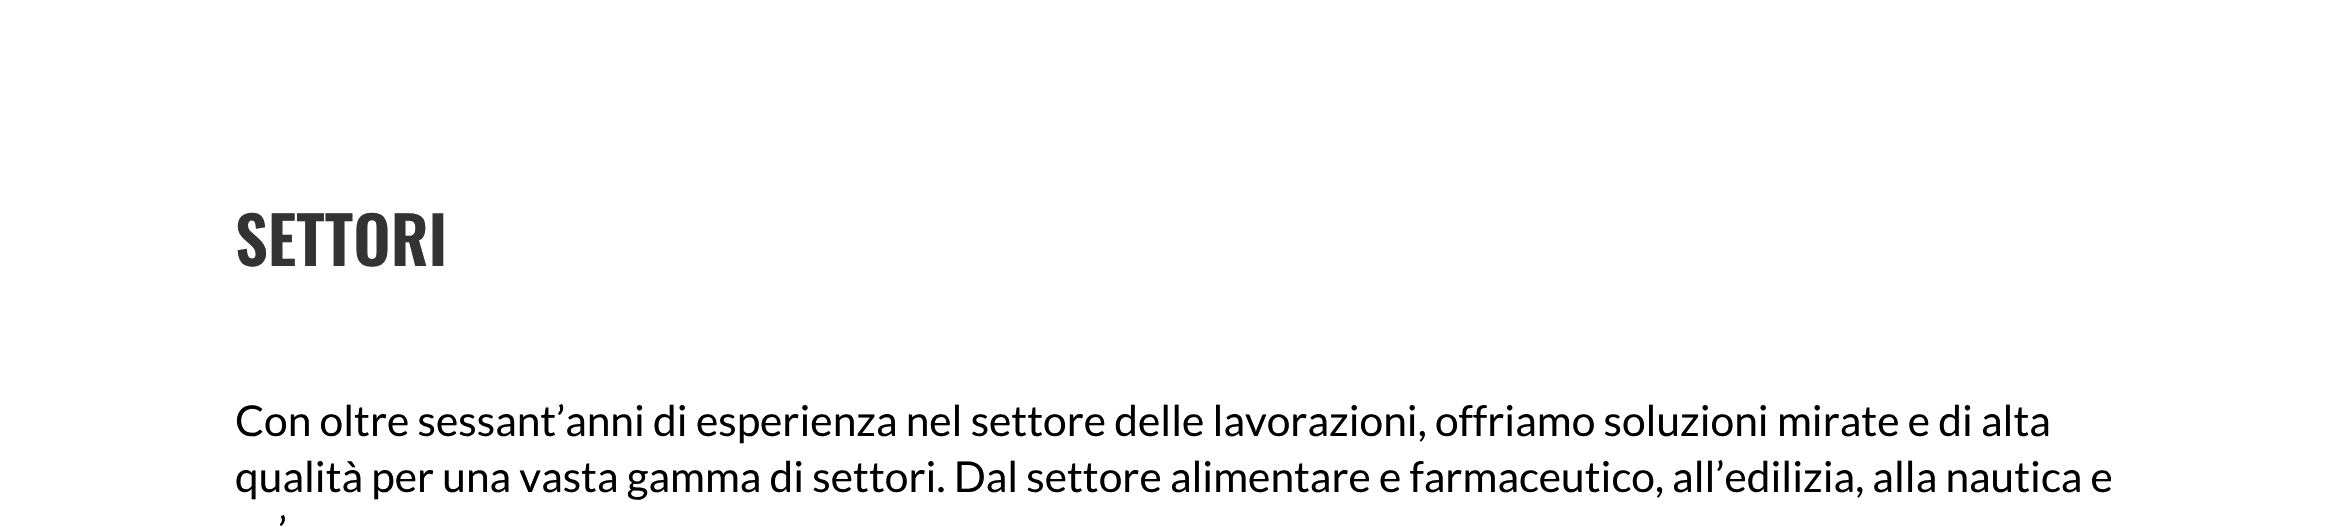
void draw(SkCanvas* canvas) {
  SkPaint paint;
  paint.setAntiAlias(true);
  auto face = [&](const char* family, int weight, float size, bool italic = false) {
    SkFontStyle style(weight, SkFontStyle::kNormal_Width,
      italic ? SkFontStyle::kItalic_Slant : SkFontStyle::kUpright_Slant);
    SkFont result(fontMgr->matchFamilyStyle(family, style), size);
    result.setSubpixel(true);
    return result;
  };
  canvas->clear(0xffffffff);
  auto f0 = face("Oswald", 600, 65);
  paint.setColor(0xff333333);
  canvas->drawString("SETTORI", 235, 266, f0, paint);
  auto f1 = face("Lato", 400, 42.5f);
  paint.setColor(0xff000000);
  {
    const struct { const char* s; float x, y; } items[] = {
      {"Con oltre sessant’anni di esperienza nel settore delle lavorazioni, offriamo soluzioni mirate e di alta", 235, 436},
      {"qualità per una vasta gamma di settori. Dal settore alimentare e farmaceutico, all’edilizia, alla nautica e", 235, 492},
      {"’", 278, 547},
    };
    for (auto [s, x, y] : items) {
      canvas->drawString(s, x, y, f1, paint);
    }
  }
}
